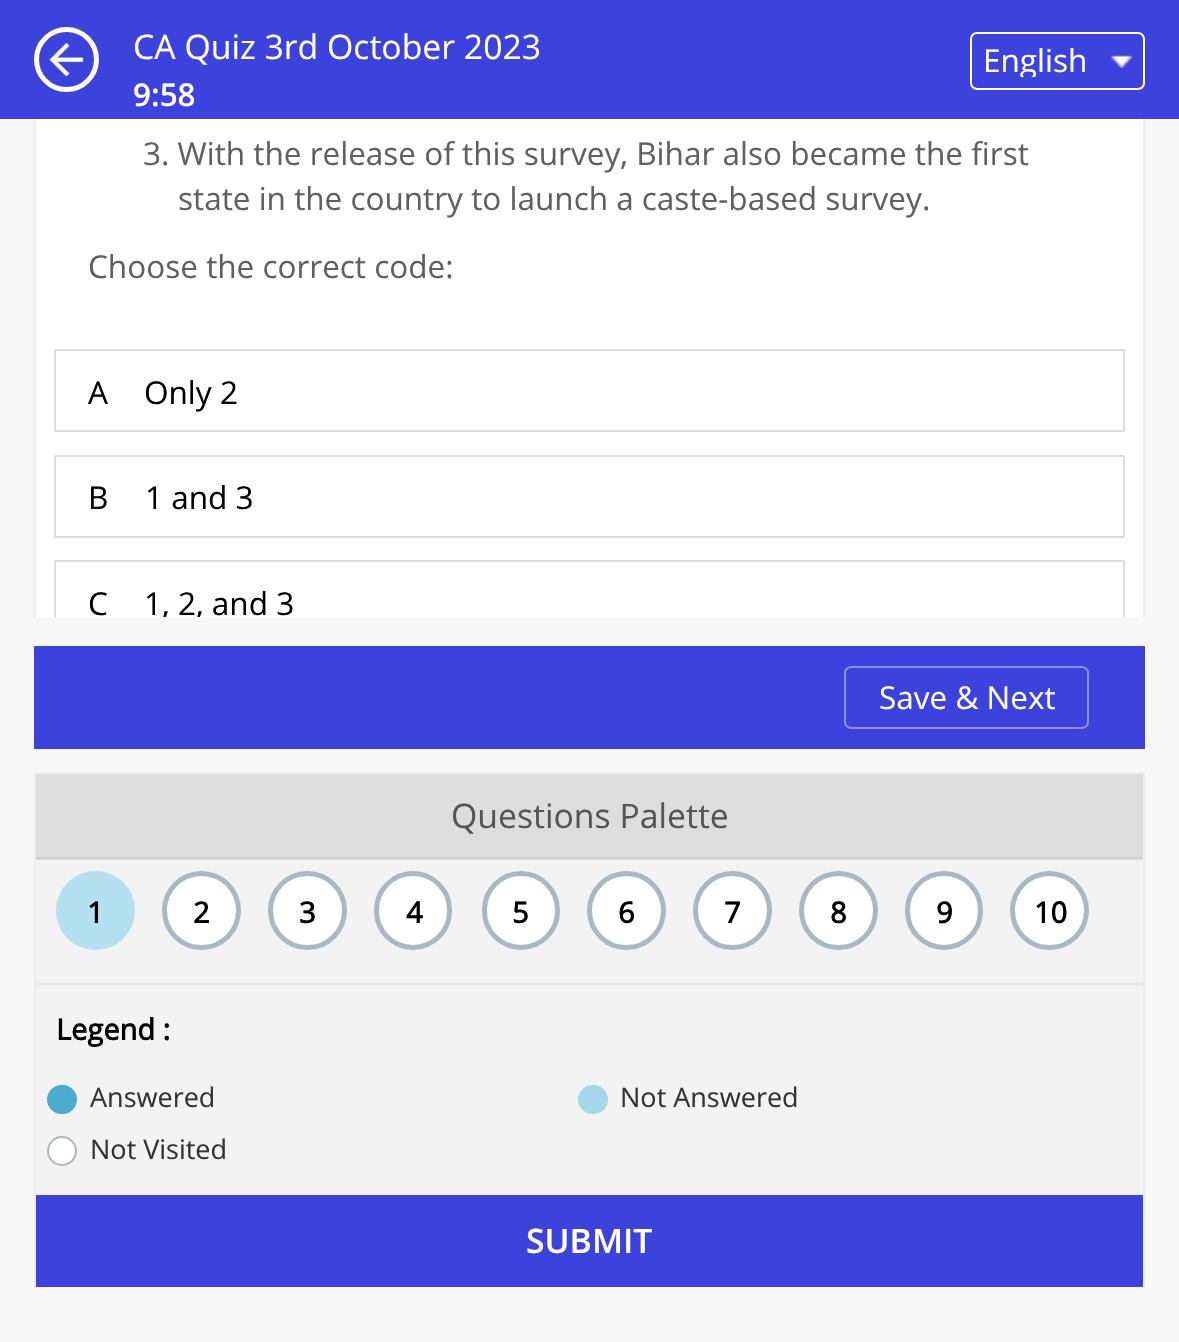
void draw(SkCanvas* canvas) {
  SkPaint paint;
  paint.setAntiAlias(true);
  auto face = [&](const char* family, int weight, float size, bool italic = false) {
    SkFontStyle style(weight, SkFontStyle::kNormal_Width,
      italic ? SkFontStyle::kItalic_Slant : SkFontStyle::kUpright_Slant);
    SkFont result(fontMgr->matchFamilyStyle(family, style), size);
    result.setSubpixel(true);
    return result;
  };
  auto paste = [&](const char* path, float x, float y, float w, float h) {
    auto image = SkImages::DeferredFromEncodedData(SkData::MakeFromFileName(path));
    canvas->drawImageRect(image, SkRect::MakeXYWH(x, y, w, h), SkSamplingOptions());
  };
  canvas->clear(0xfff7f7f7);
  paint.setColor(0xffffffff);
  canvas->drawRect(SkRect::MakeXYWH(36, 119, 1107, 498), paint);
  paint.setColor(0xff3c42db);
  canvas->drawRect(SkRect::MakeXYWH(34, 646, 1111, 103), paint);
  paint.setStroke(true);
  paint.setStrokeWidth(2);
  paint.setColor(0xff8a8ee9);
  canvas->drawRoundRect(SkRect::MakeXYWH(845, 667, 243, 61), 6, 6, paint);
  canvas->save();
  canvas->clipRect(SkRect::MakeXYWH(34, 0, 1111, 617));
  paint.setColor(0xffededed);
  canvas->drawRect(SkRect::MakeXYWH(35, -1, 1109, 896), paint);
  canvas->restore();
  paint.setStroke(false);
  paint.setColor(0xff3c42db);
  canvas->drawRect(SkRect::MakeXYWH(0, 0, 1179, 119), paint);
  paint.setStroke(true);
  paint.setStrokeWidth(5);
  paint.setColor(0xffffffff);
  canvas->drawCircle(66.5f, 59.5f, 30, paint);
  paste("img/1.png", 49, 43, 35, 34);
  paste("img/2.png", 1110, 55, 22, 13);
  paint.setStrokeWidth(2);
  canvas->drawRoundRect(SkRect::MakeXYWH(971, 33, 173, 56), 6, 6, paint);
  paint.setColor(0xffdbdbdb);
  canvas->drawRoundRect(SkRect::MakeXYWH(55, 350, 1069, 81), 1, 1, paint);
  canvas->drawRoundRect(SkRect::MakeXYWH(55, 456, 1069, 81), 1, 1, paint);
  canvas->save();
  canvas->clipRect(SkRect::MakeXYWH(34, 0, 1111, 617));
  canvas->drawRoundRect(SkRect::MakeXYWH(55, 561, 1069, 82), 1, 1, paint);
  canvas->restore();
  paint.setStroke(false);
  {
    const struct { float x, y, w, h; SkColor color; } items[] = {
      {36, 860, 1107, 335, 0xfff3f3f3},
      {34, 772, 1111, 2, 0xffeeeeee},
      {1143, 772, 2, 515, 0xffeeeeee},
      {34, 772, 2, 515, 0xffeeeeee},
      {36, 774, 1107, 86, 0xffdddddd},
      {36, 857, 1107, 2, 0xffd0d0d0},
      {36, 983, 1107, 2, 0xffe6e6e6},
    };
    for (auto [x, y, w, h, color] : items) {
      paint.setColor(color);
      canvas->drawRect(SkRect::MakeXYWH(x, y, w, h), paint);
    }
  }
  paint.setColor(0xffb4e0f0);
  canvas->drawCircle(95.5f, 910.5f, 37, paint);
  paint.setStroke(true);
  paint.setStrokeWidth(5);
  canvas->drawCircle(95.5f, 910.5f, 37, paint);
  paint.setStroke(false);
  paint.setColor(0xffffffff);
  canvas->drawCircle(201.5f, 910.5f, 37, paint);
  paint.setStroke(true);
  paint.setColor(0xffaab8c2);
  canvas->drawCircle(201.5f, 910.5f, 37, paint);
  paint.setStroke(false);
  paint.setColor(0xffffffff);
  canvas->drawCircle(307.5f, 910.5f, 37, paint);
  paint.setStroke(true);
  paint.setColor(0xffaab8c2);
  canvas->drawCircle(307.5f, 910.5f, 37, paint);
  paint.setStroke(false);
  paint.setColor(0xffffffff);
  canvas->drawRoundRect(SkRect::MakeXYWH(376.5f, 873.5f, 73, 74), 36.5f, 36.5f, paint);
  paint.setStroke(true);
  paint.setColor(0xffaab8c2);
  canvas->drawRoundRect(SkRect::MakeXYWH(376.5f, 873.5f, 73, 74), 36.5f, 36.5f, paint);
  paint.setStroke(false);
  paint.setColor(0xffffffff);
  canvas->drawRoundRect(SkRect::MakeXYWH(484.5f, 873.5f, 73, 74), 36.5f, 36.5f, paint);
  paint.setStroke(true);
  paint.setColor(0xffaab8c2);
  canvas->drawRoundRect(SkRect::MakeXYWH(484.5f, 873.5f, 73, 74), 36.5f, 36.5f, paint);
  paint.setStroke(false);
  paint.setColor(0xffffffff);
  canvas->drawCircle(626.5f, 910.5f, 37, paint);
  paint.setStroke(true);
  paint.setColor(0xffaab8c2);
  canvas->drawCircle(626.5f, 910.5f, 37, paint);
  paint.setStroke(false);
  paint.setColor(0xffffffff);
  canvas->drawCircle(732.5f, 910.5f, 37, paint);
  paint.setStroke(true);
  paint.setColor(0xffaab8c2);
  canvas->drawCircle(732.5f, 910.5f, 37, paint);
  paint.setStroke(false);
  paint.setColor(0xffffffff);
  canvas->drawCircle(838.5f, 910.5f, 37, paint);
  paint.setStroke(true);
  paint.setColor(0xffaab8c2);
  canvas->drawCircle(838.5f, 910.5f, 37, paint);
  paint.setStroke(false);
  paint.setColor(0xffffffff);
  canvas->drawRoundRect(SkRect::MakeXYWH(907.5f, 873.5f, 73, 74), 36.5f, 36.5f, paint);
  paint.setStroke(true);
  paint.setColor(0xffaab8c2);
  canvas->drawRoundRect(SkRect::MakeXYWH(907.5f, 873.5f, 73, 74), 36.5f, 36.5f, paint);
  paint.setStroke(false);
  paint.setColor(0xffffffff);
  canvas->drawCircle(1049.5f, 910.5f, 37, paint);
  paint.setStroke(true);
  paint.setColor(0xffaab8c2);
  canvas->drawCircle(1049.5f, 910.5f, 37, paint);
  paint.setStroke(false);
  paint.setColor(0xff4caace);
  canvas->drawRoundRect(SkRect::MakeXYWH(48, 1086, 28, 27), 13.5f, 13.5f, paint);
  paint.setStroke(true);
  paint.setStrokeWidth(2);
  canvas->drawRoundRect(SkRect::MakeXYWH(48, 1086, 28, 27), 13.5f, 13.5f, paint);
  paint.setStroke(false);
  paint.setColor(0xffa4d7ea);
  canvas->drawRoundRect(SkRect::MakeXYWH(579, 1086, 28, 27), 13.5f, 13.5f, paint);
  paint.setStroke(true);
  canvas->drawRoundRect(SkRect::MakeXYWH(579, 1086, 28, 27), 13.5f, 13.5f, paint);
  paint.setStroke(false);
  paint.setColor(0xffffffff);
  canvas->drawCircle(62, 1151, 14, paint);
  paint.setStroke(true);
  paint.setColor(0xffaab8c2);
  canvas->drawCircle(62, 1151, 14, paint);
  paint.setStroke(false);
  paint.setColor(0xff3c42db);
  canvas->drawRect(SkRect::MakeXYWH(36, 1195, 1107, 92), paint);
  auto f0 = face("Open Sans", 400, 33.75f);
  paint.setColor(0xffffffff);
  canvas->drawString("CA Quiz 3rd October 2023", 133, 59, f0, paint);
  auto f1 = face("Open Sans", 600, 31.5f);
  canvas->drawString("9:58", 133, 106, f1, paint);
  canvas->save();
  canvas->clipRect(SkRect::MakeXYWH(983, 45, 194, 32));
  auto f2 = face("Open Sans", 400, 31.5f);
  canvas->drawString("English", 983, 72, f2, paint);
  canvas->restore();
  paint.setColor(0xff606060);
  {
    const struct { const char* s; float x, y; } items[] = {
      {"3. With the release of this survey, Bihar also became the first", 143, 165},
      {"state in the country to launch a caste-based survey.", 178, 210},
      {"Choose the correct code:", 88, 278},
    };
    for (auto [s, x, y] : items) {
      canvas->drawString(s, x, y, f2, paint);
    }
  }
  paint.setColor(0xff000000);
  {
    const struct { const char* s; float x, y; } items[] = {
      {"A", 88, 404},
      {"Only 2", 144, 404},
      {"B", 88, 509},
      {"1 and 3", 145, 509},
      {"C", 88, 615},
    };
    for (auto [s, x, y] : items) {
      canvas->drawString(s, x, y, f2, paint);
    }
  }
  canvas->save();
  canvas->clipRect(SkRect::MakeXYWH(34, 0, 1111, 617));
  canvas->drawString("1, 2, and 3", 144, 615, f2, paint);
  canvas->restore();
  paint.setColor(0xffffffff);
  canvas->drawString("Save & Next", 879, 709, f2, paint);
  paint.setColor(0xff555555);
  canvas->drawString("Questions Palette", 451, 828, f0, paint);
  auto f3 = face("Open Sans", 700, 29);
  paint.setColor(0xff000000);
  {
    const struct { const char* s; float x, y; } items[] = {
      {"1", 87, 923},
      {"2", 193, 923},
      {"3", 299, 923},
      {"4", 406, 923},
      {"5", 512, 923},
      {"6", 618, 923},
      {"7", 724, 923},
      {"8", 830, 923},
      {"9", 936, 923},
      {"10", 1034, 923},
      {"Legend :", 56, 1040},
    };
    for (auto [s, x, y] : items) {
      canvas->drawString(s, x, y, f3, paint);
    }
  }
  auto f4 = face("Open Sans", 400, 27);
  paint.setColor(0xff333333);
  {
    const struct { const char* s; float x, y; } items[] = {
      {"Answered", 90, 1107},
      {"Not Answered", 620, 1107},
      {"Not Visited", 90, 1159},
    };
    for (auto [s, x, y] : items) {
      canvas->drawString(s, x, y, f4, paint);
    }
  }
  auto f5 = face("Open Sans", 600, 33.75f);
  paint.setColor(0xffffffff);
  canvas->drawString("SUBMIT", 526, 1253, f5, paint);
}
